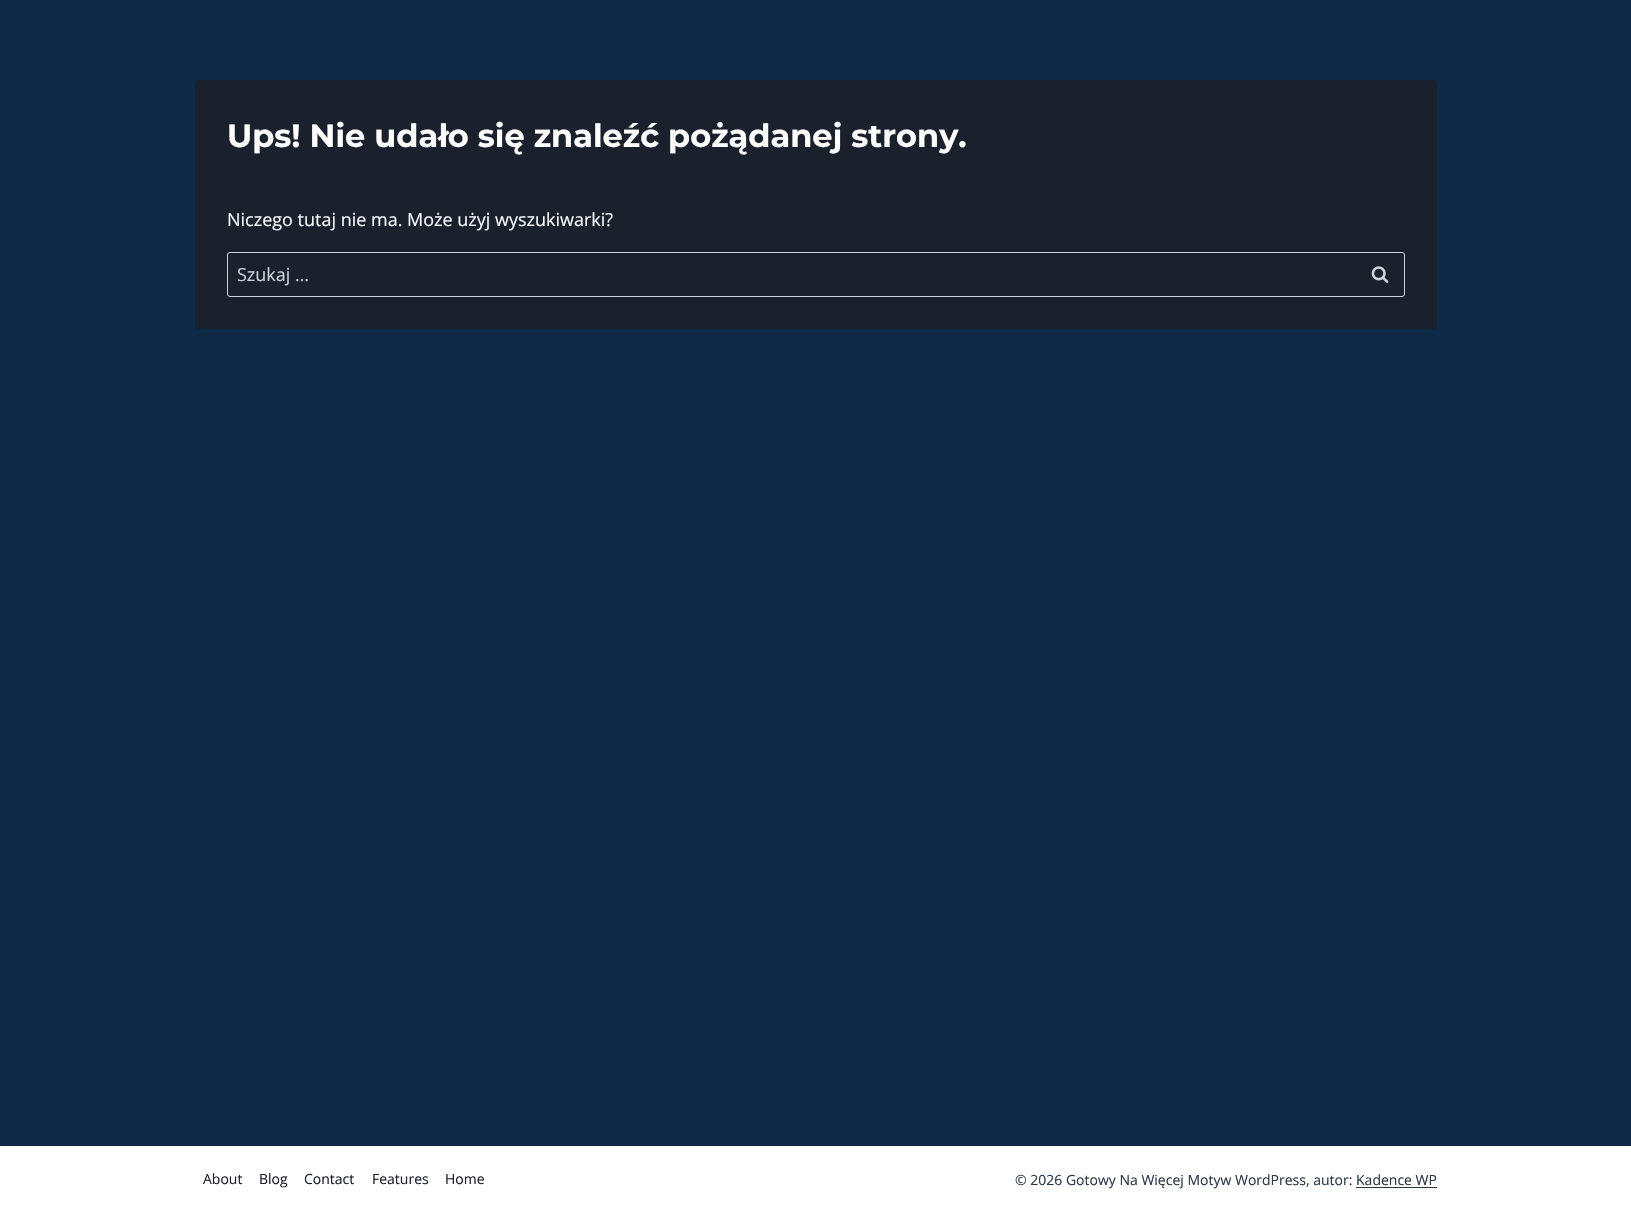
void draw(SkCanvas* canvas) {
  SkPaint paint;
  paint.setAntiAlias(true);
  auto face = [&](const char* family, int weight, float size, bool italic = false) {
    SkFontStyle style(weight, SkFontStyle::kNormal_Width,
      italic ? SkFontStyle::kItalic_Slant : SkFontStyle::kUpright_Slant);
    SkFont result(fontMgr->matchFamilyStyle(family, style), size);
    result.setSubpixel(true);
    return result;
  };
  auto paste = [&](const char* path, float x, float y, float w, float h) {
    auto image = SkImages::DeferredFromEncodedData(SkData::MakeFromFileName(path));
    canvas->drawImageRect(image, SkRect::MakeXYWH(x, y, w, h), SkSamplingOptions());
  };
  canvas->clear(0xff0e2a47);
  paint.setColor(0xff1a202c);
  canvas->drawRoundRect(SkRect::MakeXYWH(195, 80, 1242, 249), 4, 4, paint);
  paint.setStroke(true);
  paint.setStrokeWidth(1);
  paint.setColor(0xffcbd5e0);
  canvas->drawRoundRect(SkRect::MakeXYWH(227.5f, 252.5f, 1177, 44), 2.5f, 2.5f, paint);
  paste("img/1.png", 1371, 266, 18, 17);
  paint.setStroke(false);
  paint.setColor(0xffffffff);
  canvas->drawRect(SkRect::MakeXYWH(0, 1146, 1631, 69), paint);
  paint.setColor(0xff2d3748);
  canvas->drawRect(SkRect::MakeXYWH(1356, 1187, 81, 1), paint);
  auto f0 = face("Montserrat", 700, 32);
  paint.setColor(0xffffffff);
  canvas->drawString("Ups! Nie udało się znaleźć pożądanej strony.", 227, 147, f0, paint);
  auto f1 = face("Open Sans", 400, 18);
  paint.setColor(0xfff7fafc);
  canvas->drawString("Niczego tutaj nie ma. Może użyj wyszukiwarki?", 227, 226, f1, paint);
  paint.setColor(0xffcbd2d9);
  canvas->drawString("Szukaj …", 237, 281, f1, paint);
  auto f2 = face("Open Sans", 400, 14);
  paint.setColor(0xff1a202c);
  {
    const struct { const char* s; float x, y; } items[] = {
      {"About", 203, 1184},
      {"Blog", 259, 1184},
      {"Contact", 304, 1184},
      {"Features", 372, 1184},
      {"Home", 445, 1184},
    };
    for (auto [s, x, y] : items) {
      canvas->drawString(s, x, y, f2, paint);
    }
  }
  paint.setColor(0xff2d3748);
  canvas->drawString("© 2026 Gotowy Na Więcej Motyw WordPress, autor: Kadence WP", 1015, 1185, f2, paint);
}
